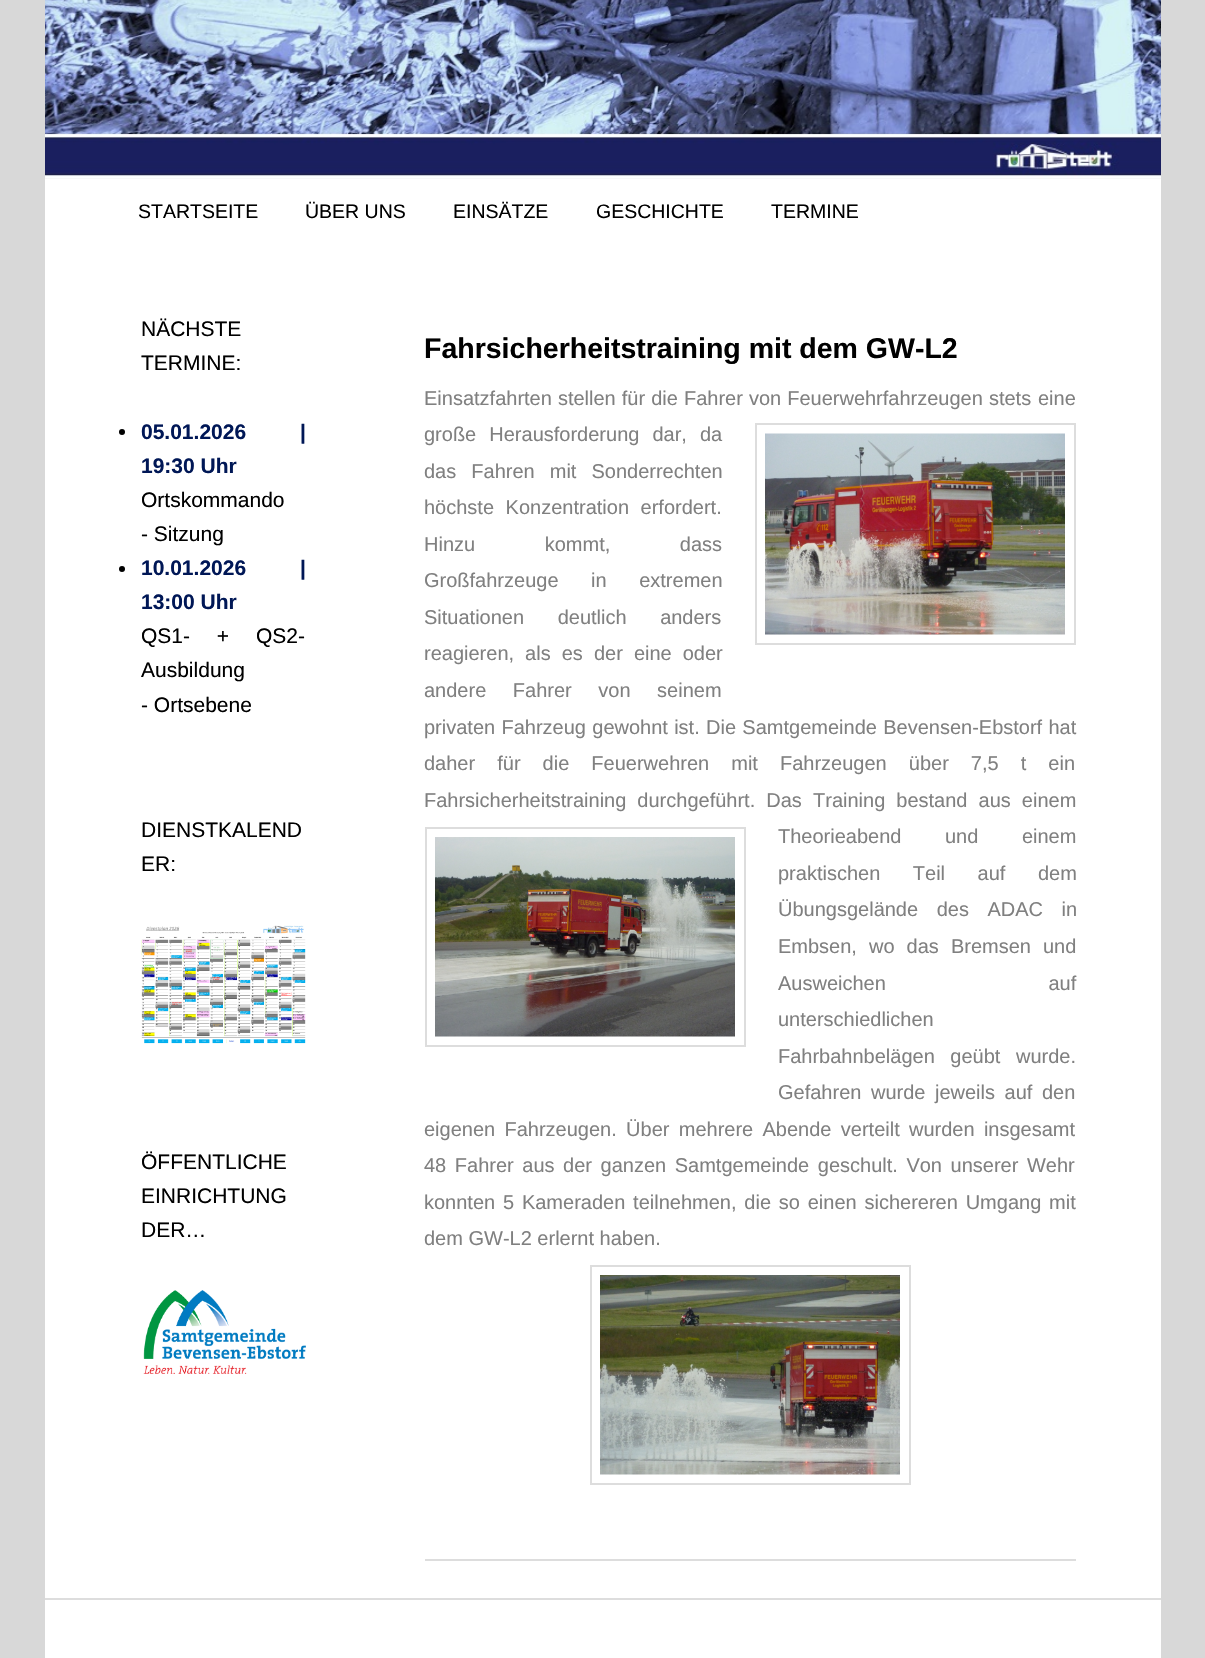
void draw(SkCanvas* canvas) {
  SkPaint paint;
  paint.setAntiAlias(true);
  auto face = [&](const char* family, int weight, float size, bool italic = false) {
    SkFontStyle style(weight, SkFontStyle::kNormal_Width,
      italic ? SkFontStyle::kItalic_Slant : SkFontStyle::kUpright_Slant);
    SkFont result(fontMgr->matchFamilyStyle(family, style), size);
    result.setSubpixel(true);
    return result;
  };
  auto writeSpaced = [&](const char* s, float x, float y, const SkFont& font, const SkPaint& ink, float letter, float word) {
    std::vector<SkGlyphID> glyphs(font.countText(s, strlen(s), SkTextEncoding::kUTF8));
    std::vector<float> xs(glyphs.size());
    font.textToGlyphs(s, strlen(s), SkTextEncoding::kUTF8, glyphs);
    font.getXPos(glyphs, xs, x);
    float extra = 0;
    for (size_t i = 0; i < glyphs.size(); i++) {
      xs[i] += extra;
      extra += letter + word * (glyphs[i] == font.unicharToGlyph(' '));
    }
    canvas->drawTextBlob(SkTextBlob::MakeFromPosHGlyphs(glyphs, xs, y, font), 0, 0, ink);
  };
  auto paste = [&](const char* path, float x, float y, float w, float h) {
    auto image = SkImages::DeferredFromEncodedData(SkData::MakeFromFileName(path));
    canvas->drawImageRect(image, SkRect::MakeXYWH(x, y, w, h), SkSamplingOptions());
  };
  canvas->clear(0xffd8d8d8);
  paint.setColor(0xffffffff);
  canvas->drawRect(SkRect::MakeXYWH(45, 179, 1116, 1479), paint);
  paint.setColor(0xfff1f1f1);
  canvas->drawRect(SkRect::MakeXYWH(45, 178, 1116, 1), paint);
  paste("img/1.png", 45, 0, 1116, 179);
  paint.setColor(0xff000000);
  canvas->drawCircle(122, 432, 3, paint);
  canvas->drawCircle(122, 569, 3, paint);
  paste("img/2.png", 141, 925, 165, 119);
  paste("img/3.png", 143, 1290, 163, 84);
  paint.setColor(0xffdddddd);
  canvas->drawRect(SkRect::MakeXYWH(425, 1559, 651, 2), paint);
  paint.setStroke(true);
  paint.setStrokeWidth(2);
  canvas->drawRect(SkRect::MakeXYWH(756, 424, 319, 220), paint);
  paste("img/4.png", 765, 433, 300, 202);
  canvas->drawRect(SkRect::MakeXYWH(426, 828, 319, 218), paint);
  paste("img/5.png", 435, 837, 300, 200);
  canvas->drawRect(SkRect::MakeXYWH(591, 1266, 319, 218), paint);
  paste("img/6.png", 600, 1275, 300, 200);
  paint.setStroke(false);
  canvas->drawRect(SkRect::MakeXYWH(45, 1598, 1116, 2), paint);
  auto f0 = face("Liberation Sans", 400, 19.5f);
  paint.setColor(0xff000000);
  {
    const struct { const char* s; float x, y; } items[] = {
      {"STARTSEITE", 138, 218},
      {"ÜBER UNS", 305, 218},
      {"EINSÄTZE", 453, 218},
      {"GESCHICHTE", 596, 218},
      {"TERMINE", 771, 218},
    };
    for (auto [s, x, y] : items) {
      canvas->drawString(s, x, y, f0, paint);
    }
  }
  auto f1 = face("Liberation Sans", 400, 21);
  canvas->drawString("NÄCHSTE", 141, 336, f1, paint);
  canvas->drawString("TERMINE:", 141, 370, f1, paint);
  auto f2 = face("Liberation Sans", 700, 21);
  paint.setColor(0xff001756);
  writeSpaced("05.01.2026 |", 141, 439, f2, paint, 0, 48);
  canvas->drawString("19:30 Uhr", 141, 473, f2, paint);
  paint.setColor(0xff000000);
  canvas->drawString("Ortskommando", 141, 507, f1, paint);
  canvas->drawString("- Sitzung", 141, 541, f1, paint);
  paint.setColor(0xff001756);
  writeSpaced("10.01.2026 |", 141, 575, f2, paint, 0, 48);
  canvas->drawString("13:00 Uhr", 141, 609, f2, paint);
  paint.setColor(0xff000000);
  writeSpaced("QS1- + QS2-", 141, 643, f1, paint, 0, 21);
  {
    const struct { const char* s; float x, y; } items[] = {
      {"Ausbildung", 141, 677},
      {"- Ortsebene", 141, 712},
      {"DIENSTKALEND", 141, 837},
      {"ER:", 141, 871},
      {"ÖFFENTLICHE", 141, 1169},
      {"EINRICHTUNG", 141, 1203},
      {"DER…", 141, 1237},
    };
    for (auto [s, x, y] : items) {
      canvas->drawString(s, x, y, f1, paint);
    }
  }
  auto f3 = face("Liberation Sans", 700, 28.5f);
  canvas->drawString("Fahrsicherheitstraining mit dem GW-L2", 424, 358, f3, paint);
  auto f4 = face("Liberation Sans", 400, 20);
  paint.setColor(0xff808080);
  writeSpaced("Einsatzfahrten stellen für die Fahrer von Feuerwehrfahrzeugen stets", 424, 405, f4, paint, 0, 0.5f);
  canvas->drawString("eine", 1038, 405, f4, paint);
  writeSpaced("große Herausforderung dar, da", 424, 441, f4, paint, 0, 7.5f);
  writeSpaced("das Fahren mit Sonderrechten", 424, 478, f4, paint, 0, 9.5f);
  writeSpaced("höchste Konzentration erfordert.", 424, 514, f4, paint, 0, 6);
  writeSpaced("Hinzu kommt, dass", 424, 551, f4, paint, 0, 64);
  writeSpaced("Großfahrzeuge in extremen", 424, 587, f4, paint, 0, 27);
  writeSpaced("Situationen deutlich anders", 424, 624, f4, paint, 0, 28);
  writeSpaced("reagieren, als es der eine oder", 424, 660, f4, paint, 0, 5.5f);
  writeSpaced("andere Fahrer von seinem", 424, 697, f4, paint, 0, 21);
  writeSpaced("privaten Fahrzeug gewohnt ist. Die Samtgemeinde Bevensen-Ebstorf hat", 424, 734, f4, paint, 0, 0.75f);
  writeSpaced("daher für die Feuerwehren mit Fahrzeugen über 7,5 t ein", 424, 770, f4, paint, 0, 16.5f);
  writeSpaced("Fahrsicherheitstraining durchgeführt. Das", 424, 807, f4, paint, 0, 5.5f);
  writeSpaced("Training bestand aus einem", 813, 807, f4, paint, 0, 5.5f);
  writeSpaced("Theorieabend und einem", 778, 843, f4, paint, 0, 38);
  writeSpaced("praktischen Teil auf dem", 778, 880, f4, paint, 0, 27);
  writeSpaced("Übungsgelände des ADAC in", 778, 916, f4, paint, 0, 13);
  writeSpaced("Embsen, wo das Bremsen und", 778, 953, f4, paint, 0, 6.5f);
  writeSpaced("Ausweichen auf", 778, 990, f4, paint, 0, 157);
  canvas->drawString("unterschiedlichen", 778, 1026, f4, paint);
  writeSpaced("Fahrbahnbelägen geübt wurde.", 778, 1063, f4, paint, 0, 10);
  writeSpaced("Gefahren wurde jeweils auf den", 778, 1099, f4, paint, 0, 4);
  writeSpaced("eigenen Fahrzeugen. Über mehrere Abende verteilt wurden insgesamt", 424, 1136, f4, paint, 0, 3.75f);
  writeSpaced("48 Fahrer aus der ganzen Samtgemeinde geschult. Von unserer Wehr", 424, 1172, f4, paint, 0, 3);
  writeSpaced("konnten 5 Kameraden teilnehmen, die so einen sichereren Umgang mit", 424, 1209, f4, paint, 0, 2.25f);
  canvas->drawString("dem GW-L2 erlernt haben.", 424, 1245, f4, paint);
}
